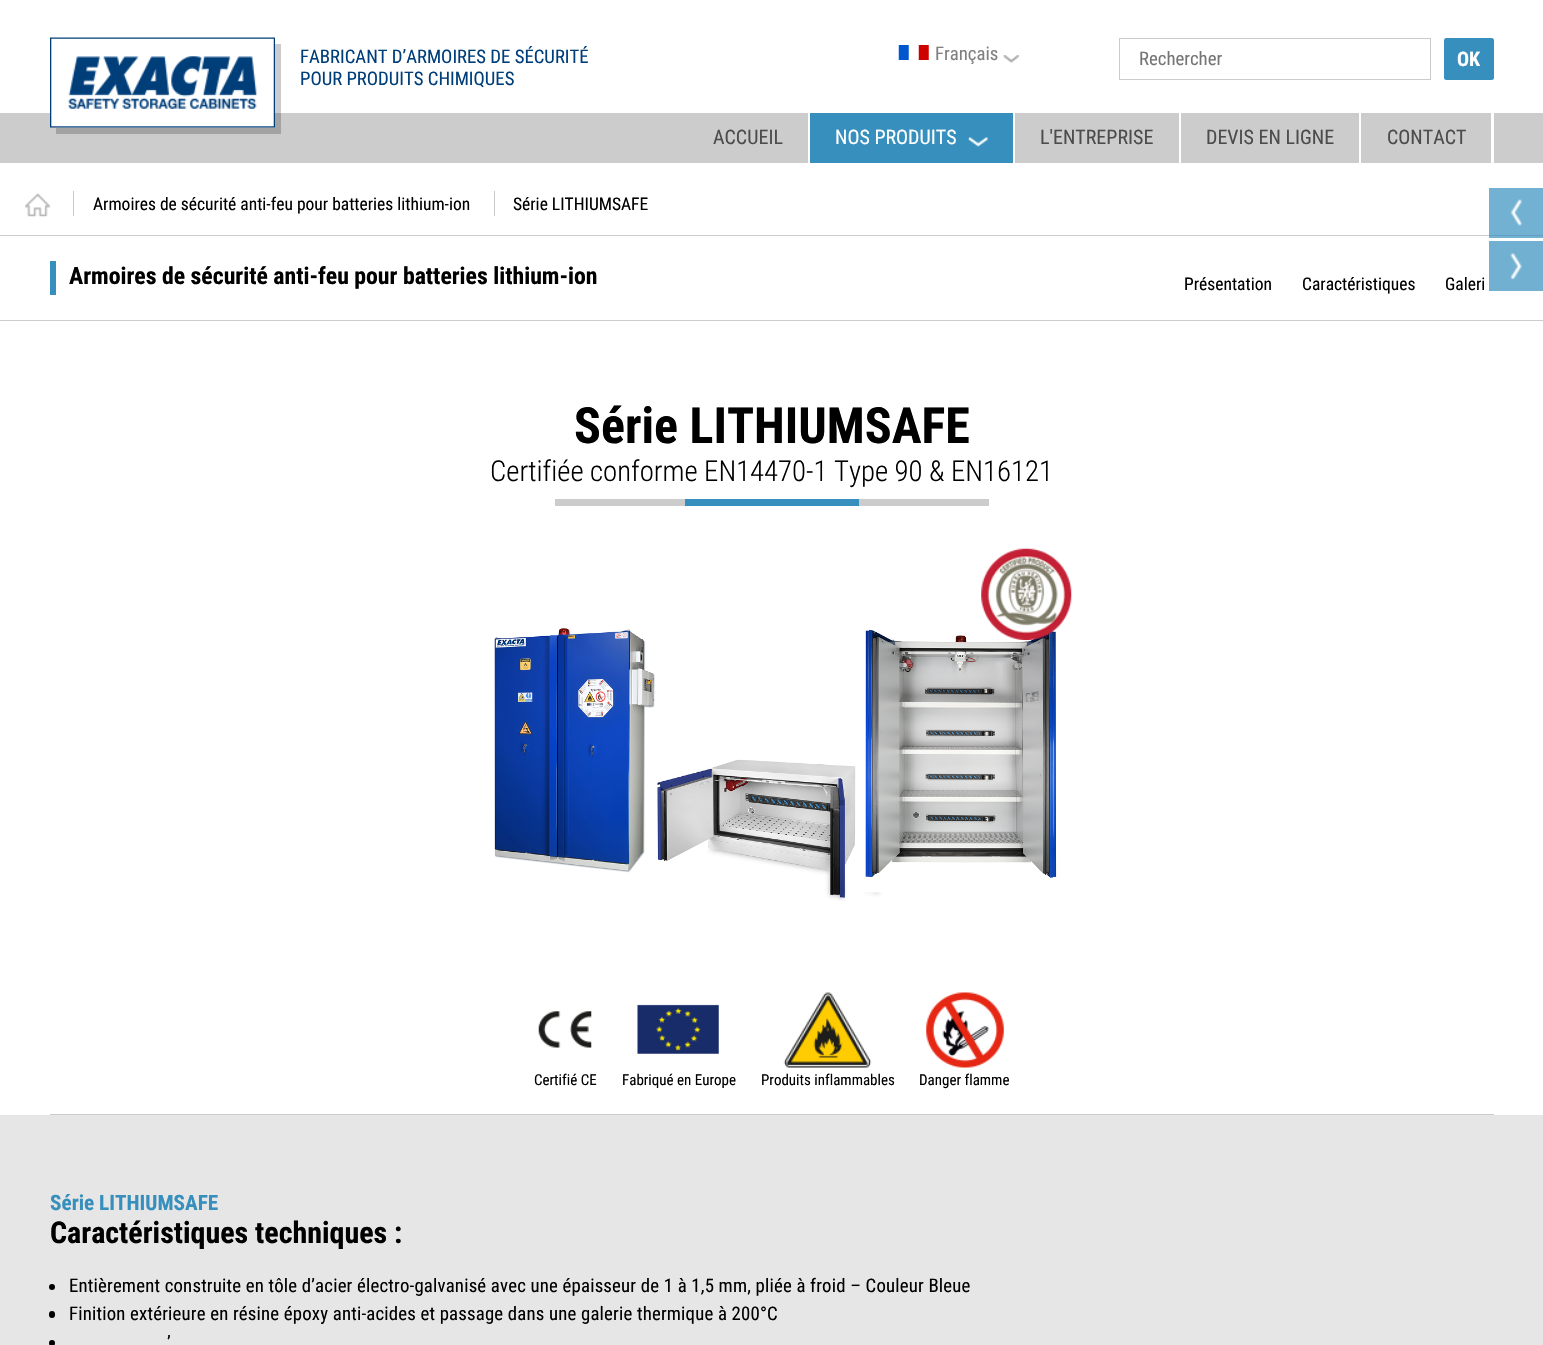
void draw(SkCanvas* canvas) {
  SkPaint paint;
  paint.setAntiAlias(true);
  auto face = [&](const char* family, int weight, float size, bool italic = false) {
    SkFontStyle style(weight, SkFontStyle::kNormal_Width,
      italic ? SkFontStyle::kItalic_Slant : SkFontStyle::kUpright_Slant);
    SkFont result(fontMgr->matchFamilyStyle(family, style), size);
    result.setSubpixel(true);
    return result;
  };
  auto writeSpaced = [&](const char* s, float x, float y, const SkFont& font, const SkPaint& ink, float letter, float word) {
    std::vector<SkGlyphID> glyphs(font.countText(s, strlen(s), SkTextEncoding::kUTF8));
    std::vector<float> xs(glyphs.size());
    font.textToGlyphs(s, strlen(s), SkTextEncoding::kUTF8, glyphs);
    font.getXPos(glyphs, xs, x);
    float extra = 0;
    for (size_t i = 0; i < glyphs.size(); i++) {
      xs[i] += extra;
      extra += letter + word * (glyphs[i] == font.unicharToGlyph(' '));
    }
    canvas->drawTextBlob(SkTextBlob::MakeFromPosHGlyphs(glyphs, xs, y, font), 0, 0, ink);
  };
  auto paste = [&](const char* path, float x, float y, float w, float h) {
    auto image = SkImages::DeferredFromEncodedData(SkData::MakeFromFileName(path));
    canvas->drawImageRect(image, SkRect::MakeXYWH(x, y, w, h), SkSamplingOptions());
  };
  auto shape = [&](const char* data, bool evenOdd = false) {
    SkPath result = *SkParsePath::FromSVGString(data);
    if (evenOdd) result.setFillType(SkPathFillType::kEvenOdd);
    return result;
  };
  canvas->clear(0xffffffff);
  paint.setColor(0xff72b1d1);
  canvas->drawRect(SkRect::MakeXYWH(1489, 188, 54, 50), paint);
  paint.setColor(0xffcccccc);
  canvas->drawRect(SkRect::MakeXYWH(0, 113, 1543, 50), paint);
  paint.setColor(0x33000000);
  canvas->drawPath(shape("M56 128V134H281V44H275V128Z"), paint);
  paste("img/1.png", 50, 37, 225, 91);
  paste("img/2.png", 1003, 55, 16, 8);
  paste("img/3.png", 898, 45, 31, 15);
  paint.setStroke(true);
  paint.setStrokeWidth(1);
  paint.setColor(0xffcbcbcb);
  canvas->drawRect(SkRect::MakeXYWH(1119.5f, 38.5f, 311, 41), paint);
  paint.setStroke(false);
  paint.setColor(0xff368fbd);
  canvas->drawRoundRect(SkRect::MakeXYWH(1444, 38, 50, 42), 2.5f, 2.5f, paint);
  {
    const struct { float x, y, w, h; SkColor color; } items[] = {
      {808, 113, 2, 50, 0xffffffff},
      {1013, 113, 2, 50, 0xffffffff},
      {810, 113, 203, 50, 0xff368fbd},
    };
    for (auto [x, y, w, h, color] : items) {
      paint.setColor(color);
      canvas->drawRect(SkRect::MakeXYWH(x, y, w, h), paint);
    }
  }
  paste("img/4.png", 968, 137, 20, 10);
  {
    const struct { float x, y, w, h; SkColor color; } items[] = {
      {1179, 113, 2, 50, 0xffffffff},
      {1359, 113, 2, 50, 0xffffffff},
      {1491, 113, 3, 50, 0xffffffff},
      {0, 235, 1489, 1, 0xffcccccc},
      {1489, 235, 54, 1, 0xff63a1c2},
    };
    for (auto [x, y, w, h, color] : items) {
      paint.setColor(color);
      canvas->drawRect(SkRect::MakeXYWH(x, y, w, h), paint);
    }
  }
  paste("img/5.png", 25, 193, 25, 24);
  {
    const struct { float x, y, w, h; SkColor color; } items[] = {
      {73, 191, 1, 25, 0xffcccccc},
      {494, 191, 1, 25, 0xffcccccc},
      {0, 320, 1543, 1, 0xffcccccc},
      {50, 261, 6, 34, 0xff368fbd},
      {555, 499, 434, 7, 0xffcccccc},
      {685, 499, 174, 7, 0xff368fbd},
    };
    for (auto [x, y, w, h, color] : items) {
      paint.setColor(color);
      canvas->drawRect(SkRect::MakeXYWH(x, y, w, h), paint);
    }
  }
  paste("img/7.png", 494, 628, 563, 273);
  paste("img/6.png", 981, 548, 91, 92);
  paint.setColor(0xffcccccc);
  canvas->drawRect(SkRect::MakeXYWH(50, 1114, 1444, 1), paint);
  paste("img/8.png", 538, 1011, 54, 37);
  paste("img/9.png", 637, 1004, 82, 50);
  paste("img/10.png", 783, 992, 89, 76);
  paste("img/11.png", 926, 992, 78, 76);
  paint.setColor(0xffe6e6e6);
  canvas->drawRect(SkRect::MakeXYWH(0, 1115, 1543, 230), paint);
  paint.setColor(0xff000000);
  canvas->drawCircle(52, 1287, 3, paint);
  canvas->drawRoundRect(SkRect::MakeXYWH(49, 1311, 6, 7), 3, 3, paint);
  canvas->drawCircle(52, 1343, 3, paint);
  paste("img/12.png", 1510, 199, 12, 27);
  paint.setColor(0xb3368fbd);
  canvas->drawRect(SkRect::MakeXYWH(1489, 241, 54, 50), paint);
  paste("img/13.png", 1510, 253, 12, 27);
  auto f0 = face("Roboto Condensed", 400, 18.75f);
  paint.setColor(0xff003e7a);
  canvas->drawString("FABRICANT D’ARMOIRES DE SÉCURITÉ", 300, 63, f0, paint);
  canvas->drawString("POUR PRODUITS CHIMIQUES", 300, 85, f0, paint);
  paint.setColor(0xff808080);
  canvas->drawString("Français", 935, 60, f0, paint);
  paint.setColor(0xff757575);
  canvas->drawString("Rechercher", 1139, 65, f0, paint);
  auto f1 = face("Roboto Condensed", 700, 20);
  paint.setColor(0xffffffff);
  canvas->drawString("OK", 1457, 66, f1, paint);
  auto f2 = face("Roboto Condensed", 400, 20);
  paint.setColor(0xff4c4c4c);
  canvas->drawString("ACCUEIL", 713, 144, f2, paint);
  paint.setColor(0xffffffff);
  canvas->drawString("NOS PRODUITS", 835, 144, f2, paint);
  paint.setColor(0xff4c4c4c);
  {
    const struct { const char* s; float x, y; } items[] = {
      {"L'ENTREPRISE", 1040, 144},
      {"DEVIS EN LIGNE", 1206, 144},
      {"CONTACT", 1387, 144},
    };
    for (auto [s, x, y] : items) {
      canvas->drawString(s, x, y, f2, paint);
    }
  }
  auto f3 = face("Roboto Condensed", 400, 17.5f);
  paint.setColor(0xff000000);
  canvas->drawString("Armoires de sécurité anti-feu pour batteries lithium-ion", 93, 210, f3, paint);
  canvas->drawString("Série LITHIUMSAFE", 513, 210, f3, paint);
  auto f4 = face("Roboto Condensed", 700, 23.75f);
  canvas->drawString("Armoires de sécurité anti-feu pour batteries lithium-ion", 69, 284, f4, paint);
  {
    const struct { const char* s; float x, y; } items[] = {
      {"Présentation", 1184, 290},
      {"Caractéristiques", 1302, 290},
      {"Galeri", 1445, 290},
    };
    for (auto [s, x, y] : items) {
      canvas->drawString(s, x, y, f3, paint);
    }
  }
  auto f5 = face("Roboto Condensed", 700, 50);
  canvas->drawString("Série LITHIUMSAFE", 574, 443, f5, paint);
  auto f6 = face("Roboto Condensed", 300, 28.75f);
  canvas->drawString("Certifiée conforme EN14470-1 Type 90 & EN16121", 490, 481, f6, paint);
  auto f7 = face("Roboto Condensed", 400, 15);
  {
    const struct { const char* s; float x, y; } items[] = {
      {"Certifié CE", 534, 1085},
      {"Fabriqué en Europe", 622, 1085},
      {"Produits inflammables", 761, 1085},
      {"Danger flamme", 919, 1085},
    };
    for (auto [s, x, y] : items) {
      canvas->drawString(s, x, y, f7, paint);
    }
  }
  auto f8 = face("Roboto Condensed", 700, 21.25f);
  paint.setColor(0xff368fbd);
  canvas->drawString("Série LITHIUMSAFE", 50, 1210, f8, paint);
  auto f9 = face("Roboto Condensed", 700, 30);
  paint.setColor(0xff000000);
  canvas->drawString("Caractéristiques techniques :", 50, 1243, f9, paint);
  {
    const struct { const char* s; float x, y; } items[] = {
      {"Entièrement construite en tôle d’acier électro-galvanisé avec une épaisseur de 1 à 1,5 mm, pliée à froid – Couleur Bleue", 69, 1292},
      {"Finition extérieure en résine époxy anti-acides et passage dans une galerie thermique à 200°C", 69, 1320},
      {"’", 167, 1349},
    };
    for (auto [s, x, y] : items) {
      writeSpaced(s, x, y, f0, paint, 0.19f, 0);
    }
  }
}
